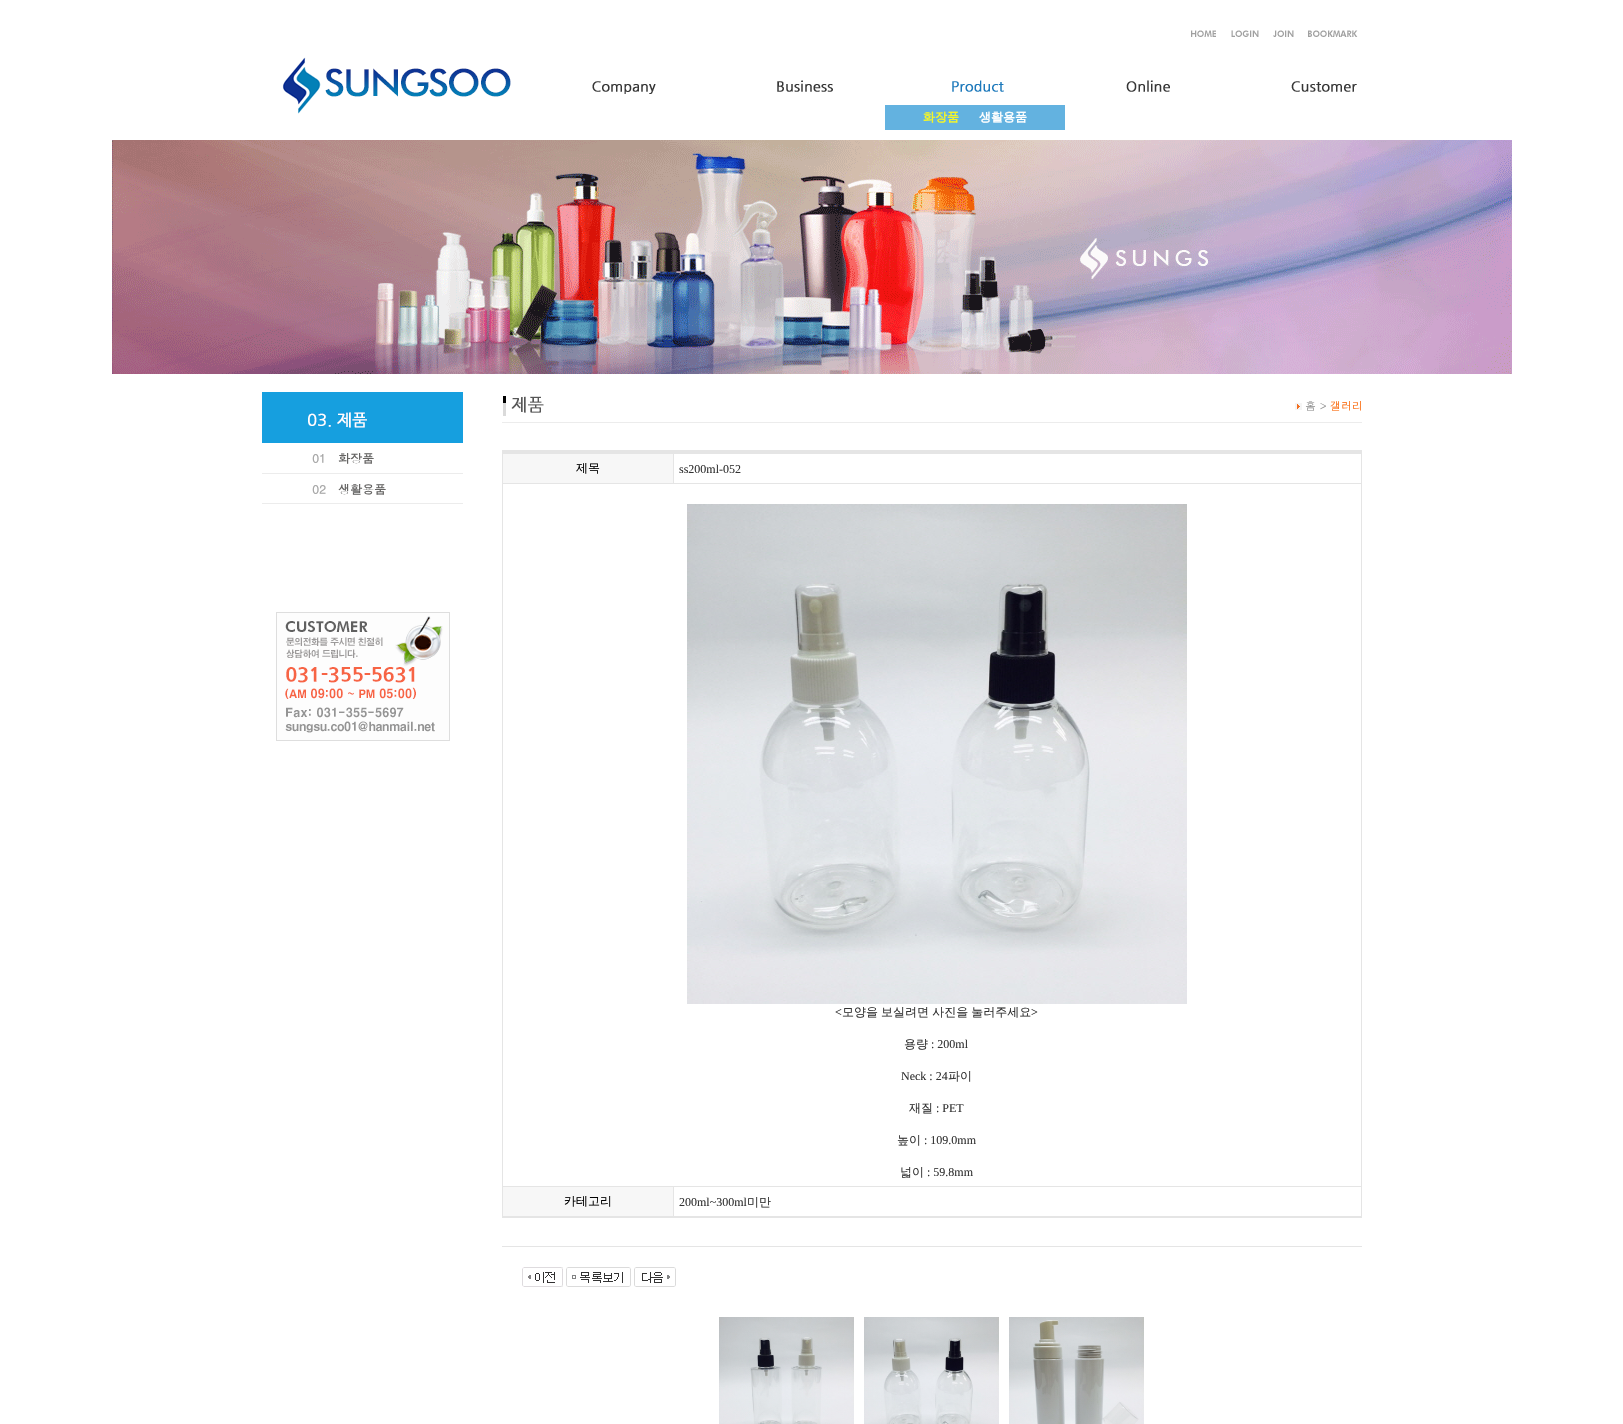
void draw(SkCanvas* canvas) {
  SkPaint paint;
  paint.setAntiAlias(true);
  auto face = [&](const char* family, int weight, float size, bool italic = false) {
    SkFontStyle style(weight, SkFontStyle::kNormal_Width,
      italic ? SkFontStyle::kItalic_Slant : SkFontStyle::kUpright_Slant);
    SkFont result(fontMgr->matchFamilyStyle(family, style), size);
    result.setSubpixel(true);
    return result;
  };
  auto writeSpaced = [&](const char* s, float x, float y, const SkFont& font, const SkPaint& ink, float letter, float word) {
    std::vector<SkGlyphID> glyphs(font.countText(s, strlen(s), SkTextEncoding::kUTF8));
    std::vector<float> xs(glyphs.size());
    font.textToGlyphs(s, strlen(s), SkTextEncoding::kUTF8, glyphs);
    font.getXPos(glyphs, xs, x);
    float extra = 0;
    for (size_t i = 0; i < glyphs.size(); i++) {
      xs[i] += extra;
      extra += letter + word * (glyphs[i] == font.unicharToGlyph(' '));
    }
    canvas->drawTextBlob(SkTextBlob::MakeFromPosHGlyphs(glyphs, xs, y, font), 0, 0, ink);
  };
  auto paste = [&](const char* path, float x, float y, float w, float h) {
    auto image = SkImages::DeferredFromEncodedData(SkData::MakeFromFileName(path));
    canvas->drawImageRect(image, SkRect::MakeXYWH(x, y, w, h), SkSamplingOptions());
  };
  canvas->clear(0xffffffff);
  paste("img/1.png", 282, 57, 229, 57);
  paste("img/2.png", 1191, 30, 25, 7);
  paste("img/3.png", 1231, 30, 28, 7);
  paste("img/4.png", 1273, 30, 21, 7);
  paste("img/5.png", 1308, 30, 50, 7);
  paste("img/6.png", 592, 81, 64, 13);
  paste("img/7.png", 777, 80, 56, 12);
  paste("img/8.png", 952, 80, 52, 12);
  paste("img/9.png", 1126, 80, 44, 12);
  paste("img/10.png", 1291, 81, 66, 11);
  paint.setColor(0xff63b2e0);
  canvas->drawRect(SkRect::MakeXYWH(885, 105, 180, 25), paint);
  paste("img/11.png", 112, 140, 1400, 234);
  paste("img/12.png", 262, 392, 201, 51);
  paint.setColor(0xffececec);
  canvas->drawRect(SkRect::MakeXYWH(262, 473, 201, 1), paint);
  canvas->drawRect(SkRect::MakeXYWH(262, 503, 201, 1), paint);
  paste("img/13.png", 276, 612, 174, 129);
  canvas->drawRect(SkRect::MakeXYWH(502, 422, 860, 1), paint);
  paste("img/14.png", 503, 396, 41, 20);
  paste("img/15.png", 1295, 403, 7, 7);
  {
    const struct { float x, y, w, h; SkColor color; } items[] = {
      {502, 450, 860, 4, 0xffe5e5e5},
      {1361, 453, 1, 764, 0xffe5e5e5},
      {502, 1216, 860, 2, 0xffe5e5e5},
      {502, 453, 1, 764, 0xffe5e5e5},
      {503, 454, 170, 29, 0xfff7f7f7},
      {502, 483, 860, 1, 0xffe5e5e5},
      {673, 453, 1, 31, 0xffe5e5e5},
    };
    for (auto [x, y, w, h, color] : items) {
      paint.setColor(color);
      canvas->drawRect(SkRect::MakeXYWH(x, y, w, h), paint);
    }
  }
  paste("img/16.png", 687, 504, 500, 500);
  {
    const struct { float x, y, w, h; SkColor color; } items[] = {
      {503, 1187, 170, 29, 0xfff7f7f7},
      {673, 1186, 689, 1, 0xffe5e5e5},
      {673, 1186, 1, 31, 0xffe5e5e5},
      {502, 1186, 172, 1, 0xffe5e5e5},
      {502, 1246, 860, 1, 0xffe5e5e5},
    };
    for (auto [x, y, w, h, color] : items) {
      paint.setColor(color);
      canvas->drawRect(SkRect::MakeXYWH(x, y, w, h), paint);
    }
  }
  paste("img/17.png", 522, 1267, 41, 20);
  paste("img/18.png", 566, 1267, 65, 20);
  paste("img/19.png", 634, 1267, 42, 20);
  paste("img/20.png", 719, 1317, 135, 107);
  paste("img/21.png", 864, 1317, 135, 107);
  paste("img/22.png", 1009, 1317, 135, 107);
  auto f0 = face("WenQuanYi Zen Hei", 700, 12);
  paint.setColor(0xfff3f528);
  canvas->drawString("화장품", 923, 121, f0, paint);
  paint.setColor(0xffffffff);
  canvas->drawString("생활용품", 979, 121, f0, paint);
  auto f1 = face("Dotum", 700, 12);
  paint.setColor(0xffa7a7a7);
  canvas->drawString("01", 312, 463, f1, paint);
  paint.setColor(0xff656463);
  canvas->drawString("화장품", 338, 463, f1, paint);
  paint.setColor(0xffa7a7a7);
  canvas->drawString("02", 312, 494, f1, paint);
  paint.setColor(0xff656463);
  canvas->drawString("생활용품", 338, 494, f1, paint);
  auto f2 = face("Dotum", 400, 11);
  paint.setColor(0xff939393);
  canvas->drawString("홈 >", 1305, 410, f2, paint);
  paint.setColor(0xfffb6504);
  canvas->drawString("갤러리", 1330, 410, f2, paint);
  auto f3 = face("WenQuanYi Zen Hei", 500, 12);
  paint.setColor(0xff000000);
  canvas->drawString("제목", 576, 472, f3, paint);
  auto f4 = face("Liberation Serif", 400, 12);
  paint.setColor(0xff333333);
  canvas->drawString("ss200ml-052", 679, 473, f4, paint);
  canvas->drawString("<", 835, 1016, f4, paint);
  writeSpaced("모양을 보실려면 사진을 눌러주세요", 842, 1016, f3, paint, 0, -0.5f);
  canvas->drawString(">", 1031, 1016, f4, paint);
  canvas->drawString("용량", 904, 1048, f3, paint);
  canvas->drawString(": 200ml", 931, 1048, f4, paint);
  canvas->drawString("Neck : 24", 901, 1080, f4, paint);
  canvas->drawString("파이", 948, 1080, f3, paint);
  canvas->drawString("재질", 909, 1112, f3, paint);
  canvas->drawString(": PET", 936, 1112, f4, paint);
  canvas->drawString("높이", 897, 1144, f3, paint);
  canvas->drawString(": 109.0mm", 924, 1144, f4, paint);
  canvas->drawString("넓이", 900, 1176, f3, paint);
  canvas->drawString(": 59.8mm", 927, 1176, f4, paint);
  paint.setColor(0xff000000);
  canvas->drawString("카테고리", 564, 1205, f3, paint);
  paint.setColor(0xff333333);
  canvas->drawString("200ml~300ml", 679, 1206, f4, paint);
  canvas->drawString("미만", 747, 1206, f3, paint);
}
